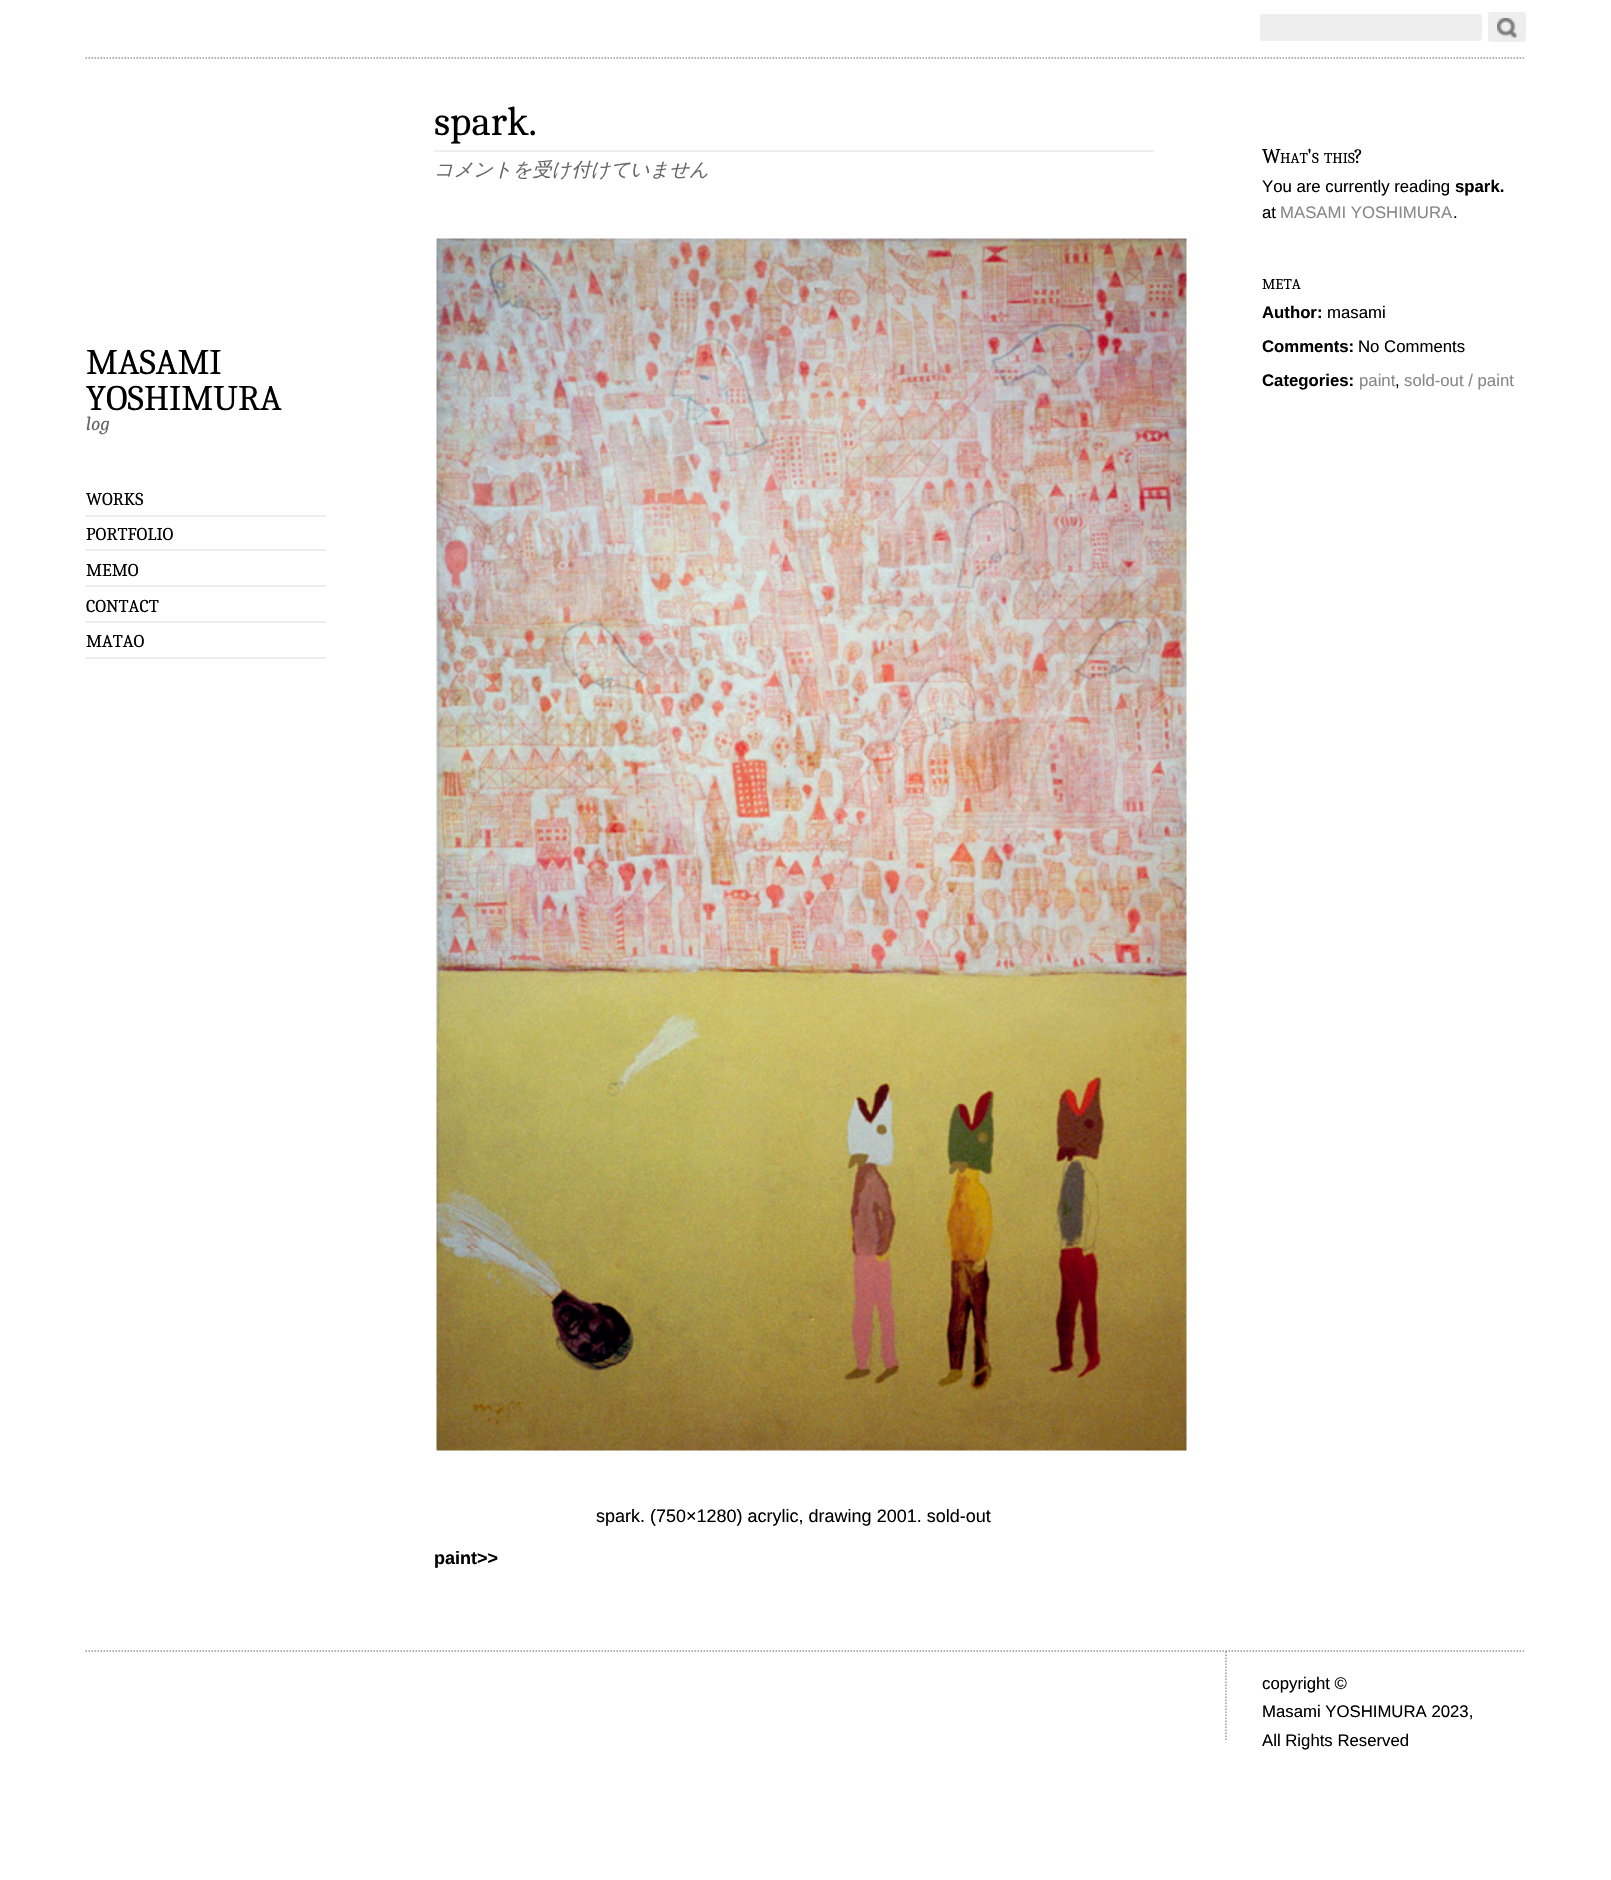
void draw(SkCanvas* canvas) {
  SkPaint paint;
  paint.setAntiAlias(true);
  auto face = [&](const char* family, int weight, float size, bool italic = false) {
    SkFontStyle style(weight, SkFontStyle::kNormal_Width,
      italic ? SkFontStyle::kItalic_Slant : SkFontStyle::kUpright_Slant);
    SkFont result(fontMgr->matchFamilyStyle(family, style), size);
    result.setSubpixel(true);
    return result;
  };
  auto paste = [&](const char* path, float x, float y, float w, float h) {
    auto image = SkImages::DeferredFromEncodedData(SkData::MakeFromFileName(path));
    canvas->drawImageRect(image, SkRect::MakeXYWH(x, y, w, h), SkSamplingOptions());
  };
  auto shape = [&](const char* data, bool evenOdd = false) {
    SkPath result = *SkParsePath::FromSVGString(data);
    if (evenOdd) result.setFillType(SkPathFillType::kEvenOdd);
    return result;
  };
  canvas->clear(0xffffffff);
  paint.setStroke(true);
  paint.setStrokeWidth(1.5f);
  paint.setColor(0xff999999);
  paint.setPathEffect(SkDashPathEffect::Make({{1.5f, 1.5f}}, 0));
  canvas->drawPath(shape("M85.5 58H1525.5"), paint);
  paint.setPathEffect(nullptr);
  paint.setStroke(false);
  paint.setColor(0xffeeeeee);
  canvas->drawRoundRect(SkRect::MakeXYWH(1260, 14, 222, 27), 3, 3, paint);
  canvas->drawRoundRect(SkRect::MakeXYWH(1488, 12, 38, 30), 3, 3, paint);
  paste("img/1.png", 1497, 18, 20, 20);
  {
    const struct { float x, y, w, h; SkColor color; } items[] = {
      {86, 515, 240, 2, 0xffeeeeee},
      {86, 549, 240, 2, 0xffeeeeee},
      {86, 585, 240, 2, 0xffeeeeee},
      {86, 621, 240, 2, 0xffeeeeee},
      {86, 657, 240, 2, 0xffeeeeee},
      {434, 150, 720, 2, 0xffeeeeee},
    };
    for (auto [x, y, w, h, color] : items) {
      paint.setColor(color);
      canvas->drawRect(SkRect::MakeXYWH(x, y, w, h), paint);
    }
  }
  paste("img/2.png", 436, 238, 751, 1213);
  paint.setStroke(true);
  paint.setColor(0xff999999);
  paint.setPathEffect(SkDashPathEffect::Make({{1.5f, 1.5f}}, 0));
  canvas->drawPath(shape("M85.5 1651H1525.5"), paint);
  paint.setPathEffect(nullptr);
  paint.setPathEffect(SkDashPathEffect::Make({{1.5f, 1.5f}}, 0));
  canvas->drawPath(shape("M1226 1651.5V1740"), paint);
  paint.setPathEffect(nullptr);
  auto f0 = face("Caladea", 400, 36);
  paint.setStroke(false);
  paint.setColor(0xff000000);
  canvas->drawString("MASAMI", 86, 374, f0, paint);
  canvas->drawString("YOSHIMURA", 86, 410, f0, paint);
  auto f1 = face("Caladea", 400, 19.25f, true);
  paint.setColor(0xff666666);
  canvas->drawString("log", 86, 430, f1, paint);
  auto f2 = face("Caladea", 400, 18);
  paint.setColor(0xff000000);
  {
    const struct { const char* s; float x, y; } items[] = {
      {"WORKS", 86, 505},
      {"PORTFOLIO", 86, 540},
      {"MEMO", 86, 576},
      {"CONTACT", 86, 612},
      {"MATAO", 86, 647},
    };
    for (auto [s, x, y] : items) {
      canvas->drawString(s, x, y, f2, paint);
    }
  }
  auto f3 = face("Caladea", 400, 41);
  canvas->drawString("spark.", 434, 135, f3, paint);
  auto f4 = face("WenQuanYi Zen Hei", 500, 19.25f, true);
  paint.setColor(0xff666666);
  canvas->drawString("コメントを受け付けていません", 434, 176, f4, paint);
  auto f5 = face("Liberation Sans", 400, 18);
  paint.setColor(0xff000000);
  canvas->drawString("spark. (750×1280) acrylic, drawing 2001. sold-out", 596, 1522, f5, paint);
  auto f6 = face("Liberation Sans", 700, 18);
  canvas->drawString("paint>>", 434, 1564, f6, paint);
  auto f7 = face("Caladea", 400, 21);
  canvas->drawString("W", 1262, 163, f7, paint);
  auto f8 = face("Caladea", 400, 15);
  canvas->drawString("HAT", 1280, 163, f8, paint);
  canvas->drawString("'", 1307, 163, f7, paint);
  canvas->drawString("S", 1312, 163, f8, paint);
  canvas->drawString("THIS", 1324, 163, f8, paint);
  canvas->drawString("?", 1354, 163, f7, paint);
  auto f9 = face("Liberation Sans", 400, 16.75f);
  canvas->drawString("You are currently reading", 1262, 192, f9, paint);
  auto f10 = face("Liberation Sans", 700, 16.75f);
  canvas->drawString("spark.", 1455, 192, f10, paint);
  canvas->drawString("at", 1262, 218, f9, paint);
  paint.setColor(0xff888888);
  canvas->drawString("MASAMI YOSHIMURA", 1280, 218, f9, paint);
  paint.setColor(0xff000000);
  canvas->drawString(".", 1453, 218, f9, paint);
  canvas->drawString("META", 1262, 289, f8, paint);
  canvas->drawString("Author:", 1262, 318, f10, paint);
  canvas->drawString("masami", 1327, 318, f9, paint);
  canvas->drawString("Comments:", 1262, 352, f10, paint);
  canvas->drawString("No Comments", 1358, 352, f9, paint);
  canvas->drawString("Categories:", 1262, 386, f10, paint);
  paint.setColor(0xff888888);
  canvas->drawString("paint", 1359, 386, f9, paint);
  paint.setColor(0xff000000);
  canvas->drawString(",", 1395, 386, f9, paint);
  paint.setColor(0xff888888);
  canvas->drawString("sold-out / paint", 1404, 386, f9, paint);
  paint.setColor(0xff000000);
  {
    const struct { const char* s; float x, y; } items[] = {
      {"copyright ©", 1262, 1689},
      {"Masami YOSHIMURA 2023,", 1262, 1717},
      {"All Rights Reserved", 1262, 1746},
    };
    for (auto [s, x, y] : items) {
      canvas->drawString(s, x, y, f9, paint);
    }
  }
}
